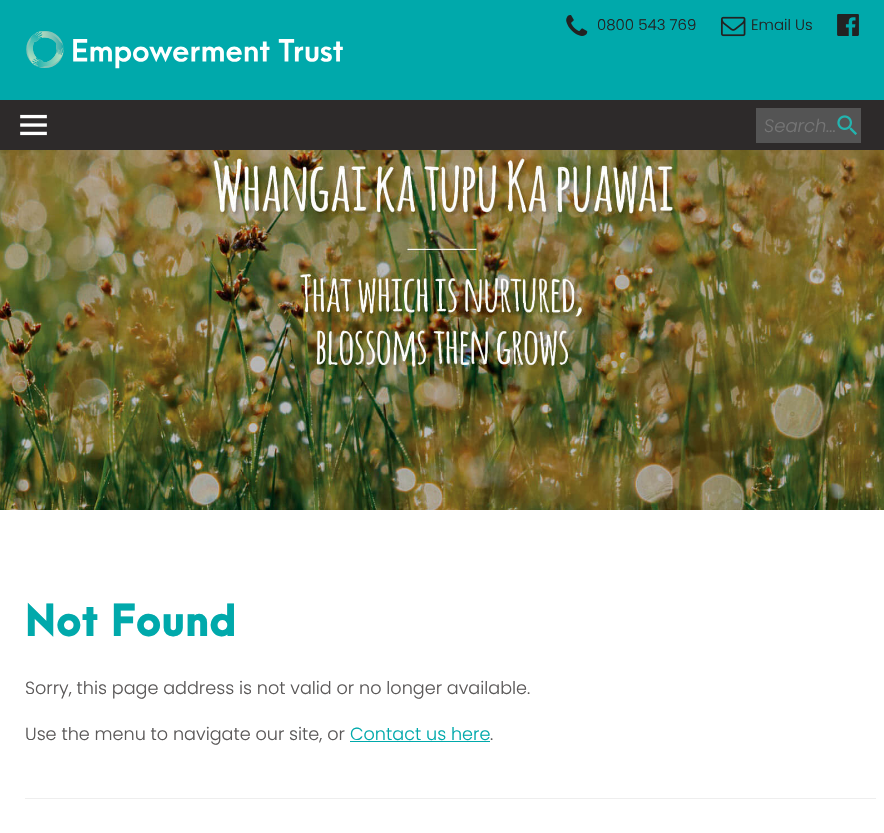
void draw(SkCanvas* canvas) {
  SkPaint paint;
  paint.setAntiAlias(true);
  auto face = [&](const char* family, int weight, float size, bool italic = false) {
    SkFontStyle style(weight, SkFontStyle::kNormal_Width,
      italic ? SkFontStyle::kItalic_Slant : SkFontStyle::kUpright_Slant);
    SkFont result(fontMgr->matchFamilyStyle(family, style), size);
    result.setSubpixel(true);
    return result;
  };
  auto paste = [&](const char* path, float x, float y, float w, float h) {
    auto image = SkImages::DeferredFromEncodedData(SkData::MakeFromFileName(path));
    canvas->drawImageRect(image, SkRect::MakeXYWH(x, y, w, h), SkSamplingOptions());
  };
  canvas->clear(0xffffffff);
  paint.setColor(0xff00a9ab);
  canvas->drawRect(SkRect::MakeXYWH(0, 0, 884, 100), paint);
  paste("img/1.png", 566, 15, 22, 21);
  paste("img/2.png", 721, 16, 25, 21);
  paste("img/3.png", 837, 14, 22, 22);
  paste("img/4.png", 26, 31, 317, 38);
  paint.setColor(0xff2d2a2a);
  canvas->drawRect(SkRect::MakeXYWH(0, 100, 884, 50), paint);
  paste("img/5.png", 20, 114, 27, 22);
  paint.setColor(0xff545454);
  canvas->drawRect(SkRect::MakeXYWH(756, 108, 105, 35), paint);
  paste("img/6.png", 837, 115, 20, 20);
  paste("img/7.png", 0, 150, 884, 360);
  paint.setColor(0xff00a9ab);
  canvas->drawRect(SkRect::MakeXYWH(350, 741, 140, 1), paint);
  paint.setColor(0xffeeeeee);
  canvas->drawRect(SkRect::MakeXYWH(25, 798, 851, 1), paint);
  auto f0 = face("Poppins", 300, 15);
  paint.setColor(0xff222222);
  canvas->drawString("0800 543 769", 597, 30, f0, paint);
  canvas->drawString("Email Us", 751, 30, f0, paint);
  auto f1 = face("Poppins", 300, 18, true);
  paint.setColor(0xff757575);
  canvas->drawString("Search...", 764, 132, f1, paint);
  auto f2 = face("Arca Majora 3", 900, 40);
  paint.setColor(0xff00a9ab);
  canvas->drawString("Not Found", 25, 636, f2, paint);
  auto f3 = face("Poppins", 300, 17.6f);
  paint.setColor(0xff5b5959);
  canvas->drawString("Sorry, this page address is not valid or no longer available.", 25, 694, f3, paint);
  canvas->drawString("Use the menu to navigate our site, or", 25, 740, f3, paint);
  paint.setColor(0xff00a9ab);
  canvas->drawString("Contact us here", 350, 740, f3, paint);
  paint.setColor(0xff5b5959);
  canvas->drawString(".", 490, 740, f3, paint);
}
